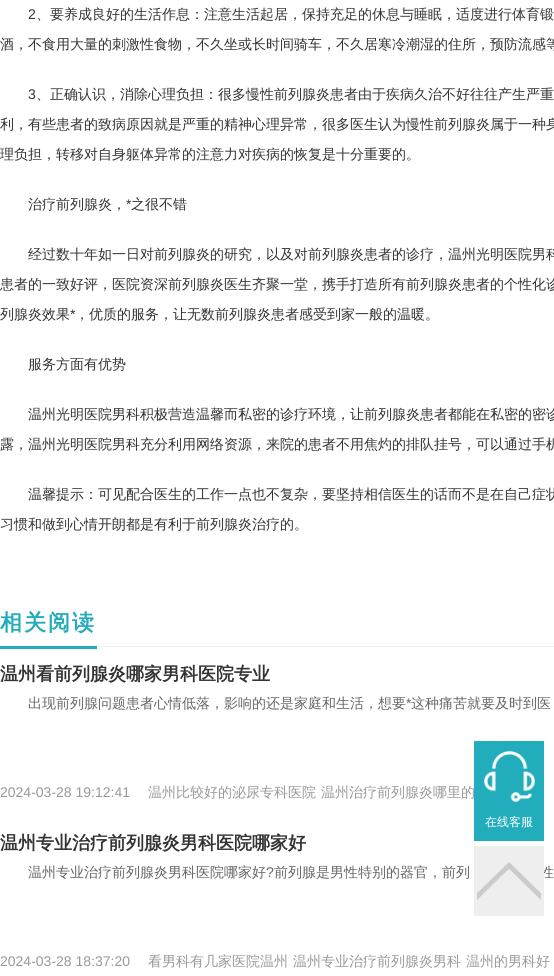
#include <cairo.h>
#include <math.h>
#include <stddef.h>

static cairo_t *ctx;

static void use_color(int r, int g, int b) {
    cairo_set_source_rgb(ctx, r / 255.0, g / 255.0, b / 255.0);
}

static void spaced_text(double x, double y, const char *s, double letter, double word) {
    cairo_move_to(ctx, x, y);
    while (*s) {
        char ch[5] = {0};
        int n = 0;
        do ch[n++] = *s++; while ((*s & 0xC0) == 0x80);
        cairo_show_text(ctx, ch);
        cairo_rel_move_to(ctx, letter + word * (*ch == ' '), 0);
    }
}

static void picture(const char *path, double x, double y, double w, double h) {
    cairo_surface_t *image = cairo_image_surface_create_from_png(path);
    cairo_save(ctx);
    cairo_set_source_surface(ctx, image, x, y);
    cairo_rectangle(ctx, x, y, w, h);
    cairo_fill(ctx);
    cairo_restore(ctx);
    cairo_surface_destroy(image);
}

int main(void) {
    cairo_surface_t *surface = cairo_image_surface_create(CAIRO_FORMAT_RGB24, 554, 976);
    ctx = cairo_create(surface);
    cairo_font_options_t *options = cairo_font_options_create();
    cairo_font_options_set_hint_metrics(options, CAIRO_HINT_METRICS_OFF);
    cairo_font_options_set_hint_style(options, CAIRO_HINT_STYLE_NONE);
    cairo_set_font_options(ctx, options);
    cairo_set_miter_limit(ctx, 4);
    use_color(255, 255, 255);
    cairo_paint(ctx);
    cairo_select_font_face(ctx, "Liberation Sans", CAIRO_FONT_SLANT_NORMAL, CAIRO_FONT_WEIGHT_NORMAL);
    cairo_set_font_size(ctx, 14);
    use_color(51, 51, 51);
    cairo_move_to(ctx, 28, 19);
    cairo_show_text(ctx, "2");
    cairo_select_font_face(ctx, "WenQuanYi Zen Hei Medium", CAIRO_FONT_SLANT_NORMAL, CAIRO_FONT_WEIGHT_NORMAL);
    cairo_move_to(ctx, 36, 19);
    cairo_show_text(ctx, "、要养成良好的生活作息：注意生活起居，保持充足的休息与睡眠，适度进行体育锻");
    cairo_move_to(ctx, 0, 49);
    cairo_show_text(ctx, "酒，不食用大量的刺激性食物，不久坐或长时间骑车，不久居寒冷潮湿的住所，预防流感等");
    cairo_select_font_face(ctx, "Liberation Sans", CAIRO_FONT_SLANT_NORMAL, CAIRO_FONT_WEIGHT_NORMAL);
    cairo_move_to(ctx, 28, 99);
    cairo_show_text(ctx, "3");
    cairo_select_font_face(ctx, "WenQuanYi Zen Hei Medium", CAIRO_FONT_SLANT_NORMAL, CAIRO_FONT_WEIGHT_NORMAL);
    cairo_move_to(ctx, 36, 99);
    cairo_show_text(ctx, "、正确认识，消除心理负担：很多慢性前列腺炎患者由于疾病久治不好往往产生严重");
    cairo_move_to(ctx, 0, 129);
    cairo_show_text(ctx, "利，有些患者的致病原因就是严重的精神心理异常，很多医生认为慢性前列腺炎属于一种身");
    cairo_move_to(ctx, 0, 159);
    cairo_show_text(ctx, "理负担，转移对自身躯体异常的注意力对疾病的恢复是十分重要的。");
    cairo_move_to(ctx, 28, 209);
    cairo_show_text(ctx, "治疗前列腺炎，");
    cairo_select_font_face(ctx, "Liberation Sans", CAIRO_FONT_SLANT_NORMAL, CAIRO_FONT_WEIGHT_NORMAL);
    cairo_move_to(ctx, 126, 209);
    cairo_show_text(ctx, "*");
    cairo_select_font_face(ctx, "WenQuanYi Zen Hei Medium", CAIRO_FONT_SLANT_NORMAL, CAIRO_FONT_WEIGHT_NORMAL);
    cairo_move_to(ctx, 131, 209);
    cairo_show_text(ctx, "之很不错");
    cairo_move_to(ctx, 28, 259);
    cairo_show_text(ctx, "经过数十年如一日对前列腺炎的研究，以及对前列腺炎患者的诊疗，温州光明医院男科");
    cairo_move_to(ctx, 0, 289);
    cairo_show_text(ctx, "患者的一致好评，医院资深前列腺炎医生齐聚一堂，携手打造所有前列腺炎患者的个性化诊");
    cairo_move_to(ctx, 0, 319);
    cairo_show_text(ctx, "列腺炎效果");
    cairo_select_font_face(ctx, "Liberation Sans", CAIRO_FONT_SLANT_NORMAL, CAIRO_FONT_WEIGHT_NORMAL);
    cairo_move_to(ctx, 70, 319);
    cairo_show_text(ctx, "*");
    cairo_select_font_face(ctx, "WenQuanYi Zen Hei Medium", CAIRO_FONT_SLANT_NORMAL, CAIRO_FONT_WEIGHT_NORMAL);
    cairo_move_to(ctx, 75, 319);
    cairo_show_text(ctx, "，优质的服务，让无数前列腺炎患者感受到家一般的温暖。");
    cairo_move_to(ctx, 28, 369);
    cairo_show_text(ctx, "服务方面有优势");
    cairo_move_to(ctx, 28, 419);
    cairo_show_text(ctx, "温州光明医院男科积极营造温馨而私密的诊疗环境，让前列腺炎患者都能在私密的密诊");
    cairo_move_to(ctx, 0, 449);
    cairo_show_text(ctx, "露，温州光明医院男科充分利用网络资源，来院的患者不用焦灼的排队挂号，可以通过手机");
    cairo_move_to(ctx, 28, 499);
    cairo_show_text(ctx, "温馨提示：可见配合医生的工作一点也不复杂，要坚持相信医生的话而不是在自己症状");
    cairo_move_to(ctx, 0, 529);
    cairo_show_text(ctx, "习惯和做到心情开朗都是有利于前列腺炎治疗的。");
    use_color(242, 242, 242);
    cairo_rectangle(ctx, 97, 646, 457, 1);
    cairo_fill(ctx);
    use_color(33, 173, 187);
    cairo_rectangle(ctx, 0, 646, 97, 3);
    cairo_fill(ctx);
    cairo_select_font_face(ctx, "WenQuanYi Zen Hei", CAIRO_FONT_SLANT_NORMAL, CAIRO_FONT_WEIGHT_BOLD);
    cairo_set_font_size(ctx, 22);
    spaced_text(0, 630, "相关阅读", 2, 0);
    cairo_set_font_size(ctx, 18);
    use_color(51, 51, 51);
    cairo_move_to(ctx, 0, 680);
    cairo_show_text(ctx, "温州看前列腺炎哪家男科医院专业");
    cairo_select_font_face(ctx, "WenQuanYi Zen Hei Medium", CAIRO_FONT_SLANT_NORMAL, CAIRO_FONT_WEIGHT_NORMAL);
    cairo_set_font_size(ctx, 14);
    use_color(102, 102, 102);
    cairo_move_to(ctx, 28, 708);
    cairo_show_text(ctx, "出现前列腺问题患者心情低落，影响的还是家庭和生活，想要");
    cairo_select_font_face(ctx, "Liberation Sans", CAIRO_FONT_SLANT_NORMAL, CAIRO_FONT_WEIGHT_NORMAL);
    cairo_move_to(ctx, 406, 708);
    cairo_show_text(ctx, "*");
    cairo_select_font_face(ctx, "WenQuanYi Zen Hei Medium", CAIRO_FONT_SLANT_NORMAL, CAIRO_FONT_WEIGHT_NORMAL);
    cairo_move_to(ctx, 411, 708);
    cairo_show_text(ctx, "这种痛苦就要及时到医");
    cairo_select_font_face(ctx, "Liberation Sans", CAIRO_FONT_SLANT_NORMAL, CAIRO_FONT_WEIGHT_NORMAL);
    use_color(153, 153, 153);
    cairo_move_to(ctx, 0, 797);
    cairo_show_text(ctx, "2024-03-28 19:12:41");
    cairo_select_font_face(ctx, "WenQuanYi Zen Hei Medium", CAIRO_FONT_SLANT_NORMAL, CAIRO_FONT_WEIGHT_NORMAL);
    cairo_move_to(ctx, 148, 797);
    cairo_show_text(ctx, "温州比较好的泌尿专科医院");
    cairo_move_to(ctx, 321, 797);
    cairo_show_text(ctx, "温州治疗前列腺炎哪里的");
    cairo_select_font_face(ctx, "WenQuanYi Zen Hei", CAIRO_FONT_SLANT_NORMAL, CAIRO_FONT_WEIGHT_BOLD);
    cairo_set_font_size(ctx, 18);
    use_color(51, 51, 51);
    cairo_move_to(ctx, 0, 849);
    cairo_show_text(ctx, "温州专业治疗前列腺炎男科医院哪家好");
    cairo_select_font_face(ctx, "WenQuanYi Zen Hei Medium", CAIRO_FONT_SLANT_NORMAL, CAIRO_FONT_WEIGHT_NORMAL);
    cairo_set_font_size(ctx, 14);
    use_color(102, 102, 102);
    cairo_move_to(ctx, 28, 877);
    cairo_show_text(ctx, "温州专业治疗前列腺炎男科医院哪家好");
    cairo_select_font_face(ctx, "Liberation Sans", CAIRO_FONT_SLANT_NORMAL, CAIRO_FONT_WEIGHT_NORMAL);
    cairo_move_to(ctx, 266, 877);
    cairo_show_text(ctx, "?");
    cairo_select_font_face(ctx, "WenQuanYi Zen Hei Medium", CAIRO_FONT_SLANT_NORMAL, CAIRO_FONT_WEIGHT_NORMAL);
    cairo_move_to(ctx, 274, 877);
    cairo_show_text(ctx, "前列腺是男性特别的器官，前列");
    cairo_move_to(ctx, 540, 877);
    cairo_show_text(ctx, "性");
    cairo_select_font_face(ctx, "Liberation Sans", CAIRO_FONT_SLANT_NORMAL, CAIRO_FONT_WEIGHT_NORMAL);
    use_color(153, 153, 153);
    cairo_move_to(ctx, 0, 966);
    cairo_show_text(ctx, "2024-03-28 18:37:20");
    cairo_select_font_face(ctx, "WenQuanYi Zen Hei Medium", CAIRO_FONT_SLANT_NORMAL, CAIRO_FONT_WEIGHT_NORMAL);
    cairo_move_to(ctx, 148, 966);
    cairo_show_text(ctx, "看男科有几家医院温州");
    cairo_move_to(ctx, 293, 966);
    cairo_show_text(ctx, "温州专业治疗前列腺炎男科");
    cairo_move_to(ctx, 466, 966);
    cairo_show_text(ctx, "温州的男科好");
    use_color(33, 173, 187);
    cairo_rectangle(ctx, 474, 741, 70, 100);
    cairo_fill(ctx);
    picture("img1.png", 484, 751, 51, 51);
    cairo_set_font_size(ctx, 12);
    use_color(255, 255, 255);
    cairo_move_to(ctx, 485, 826);
    cairo_show_text(ctx, "在线客服");
    use_color(238, 238, 238);
    cairo_rectangle(ctx, 474, 846, 70, 70);
    cairo_fill(ctx);
    picture("img2.png", 477, 862, 64, 38);
    cairo_surface_write_to_png(surface, "result.png");
    cairo_font_options_destroy(options);
    cairo_destroy(ctx);
    cairo_surface_destroy(surface);
    return 0;
}
